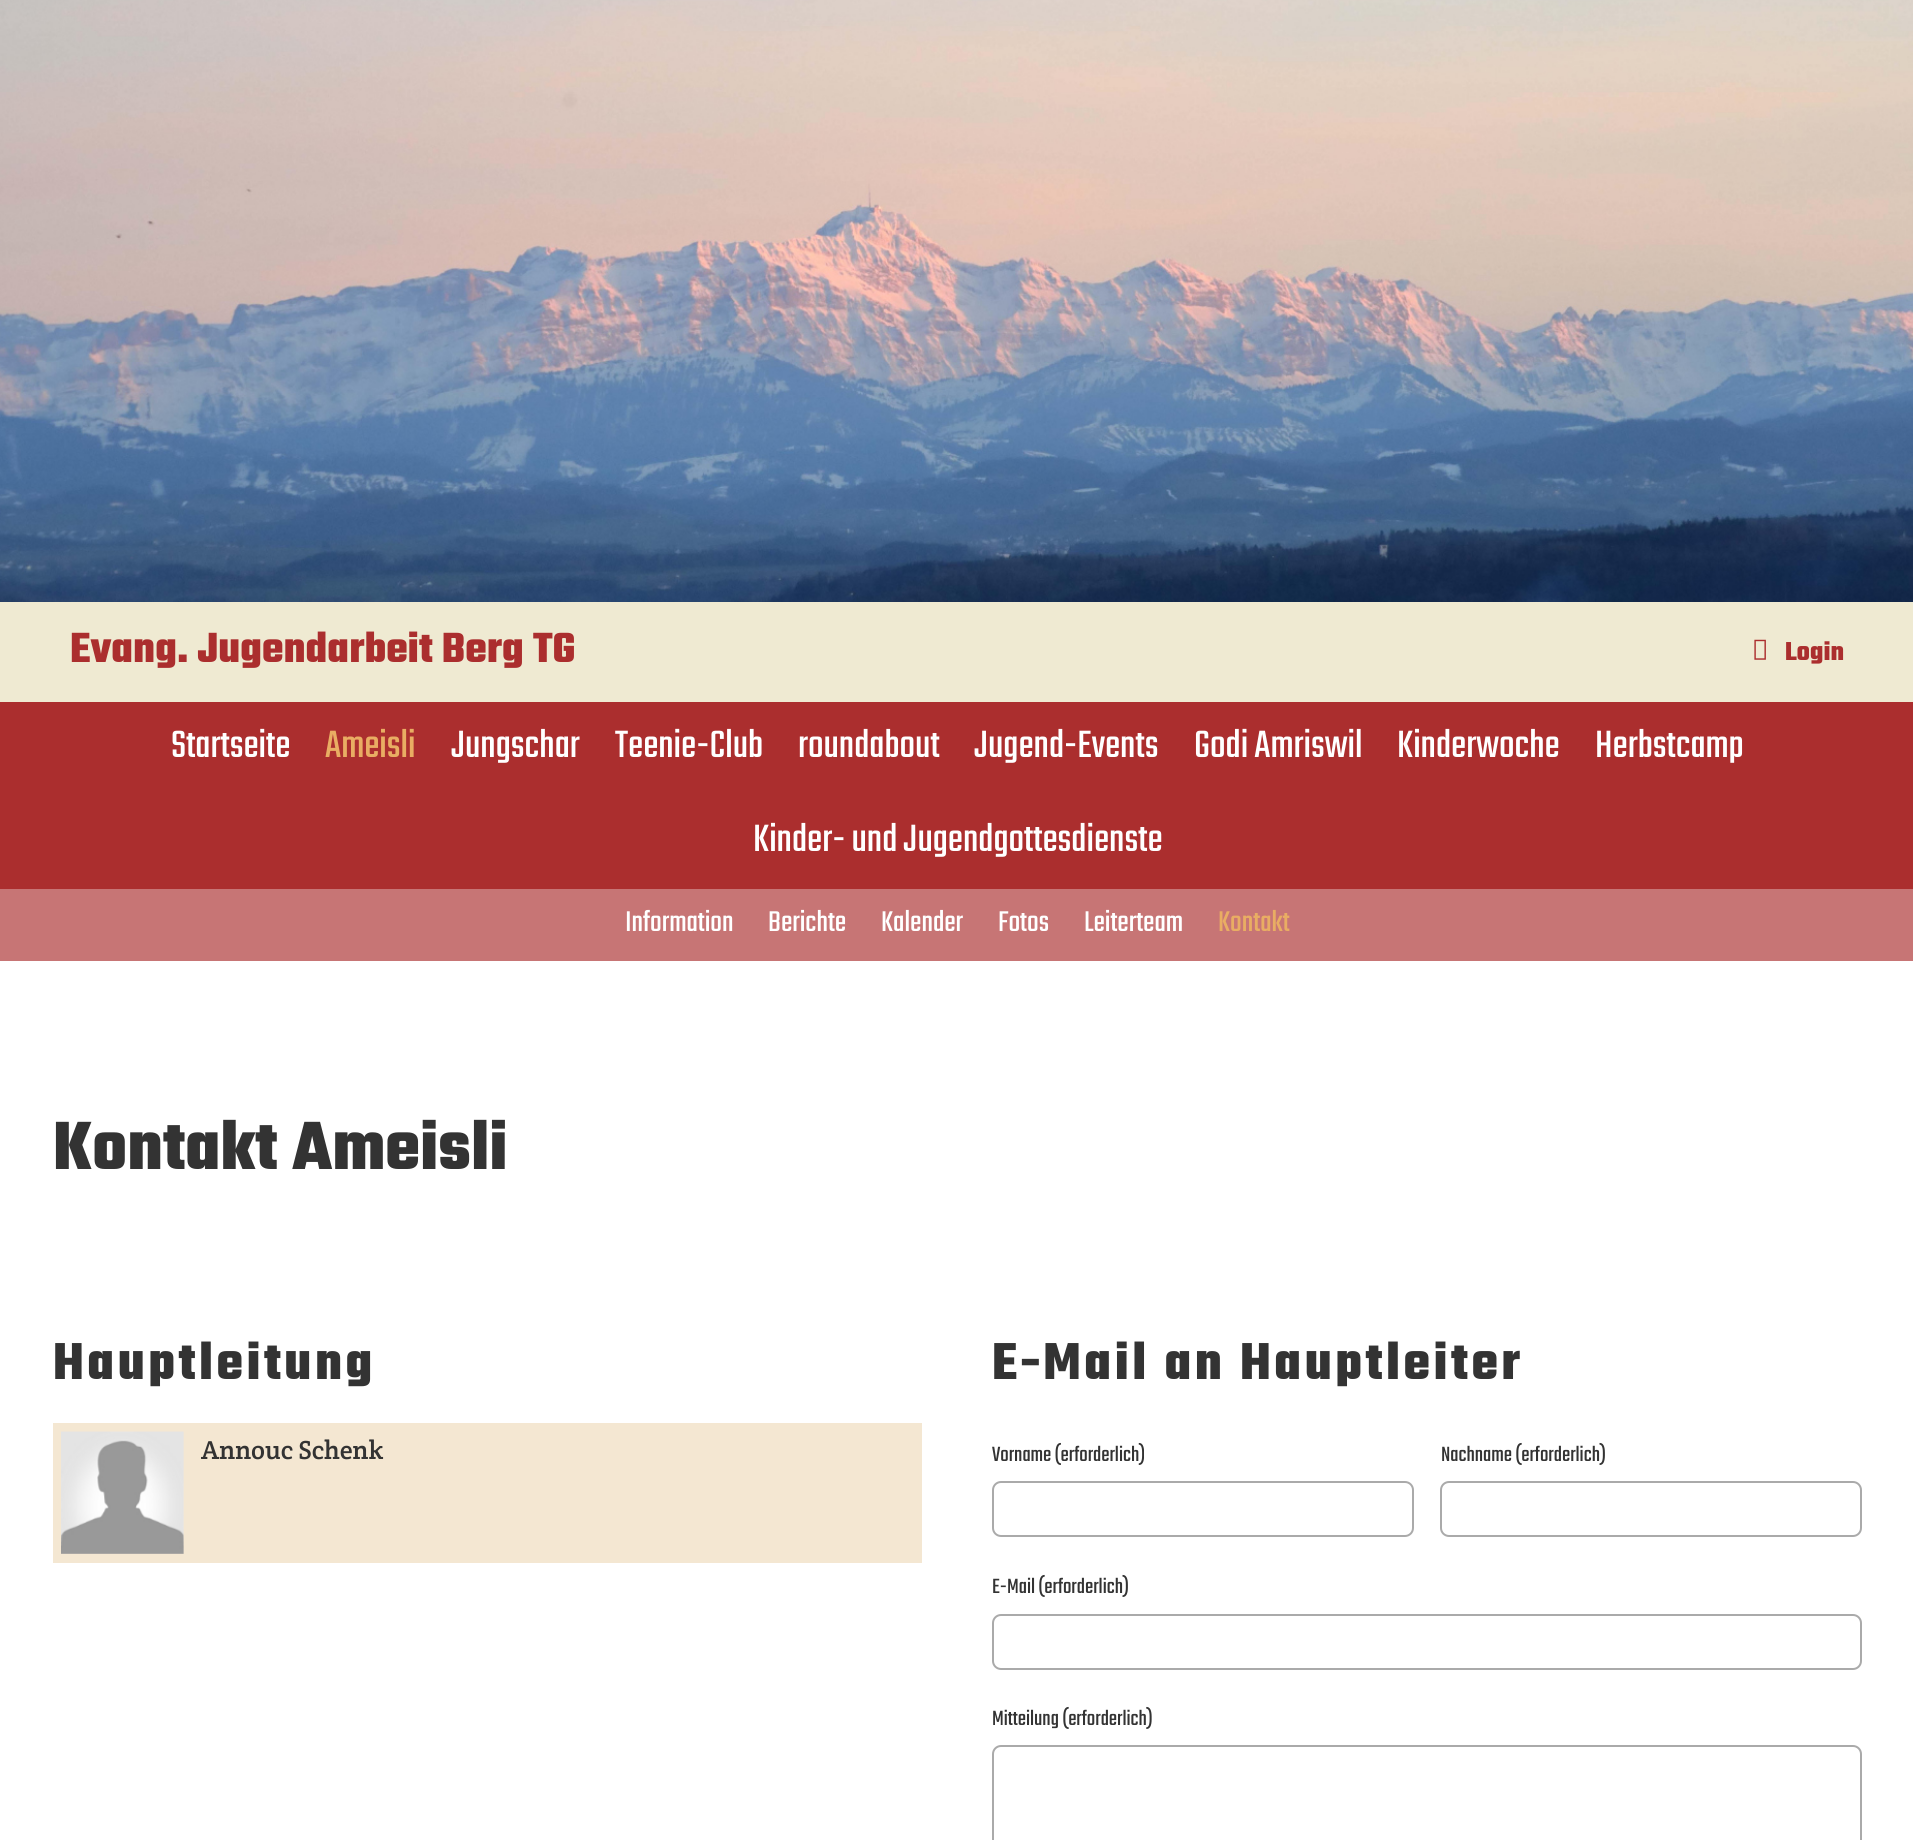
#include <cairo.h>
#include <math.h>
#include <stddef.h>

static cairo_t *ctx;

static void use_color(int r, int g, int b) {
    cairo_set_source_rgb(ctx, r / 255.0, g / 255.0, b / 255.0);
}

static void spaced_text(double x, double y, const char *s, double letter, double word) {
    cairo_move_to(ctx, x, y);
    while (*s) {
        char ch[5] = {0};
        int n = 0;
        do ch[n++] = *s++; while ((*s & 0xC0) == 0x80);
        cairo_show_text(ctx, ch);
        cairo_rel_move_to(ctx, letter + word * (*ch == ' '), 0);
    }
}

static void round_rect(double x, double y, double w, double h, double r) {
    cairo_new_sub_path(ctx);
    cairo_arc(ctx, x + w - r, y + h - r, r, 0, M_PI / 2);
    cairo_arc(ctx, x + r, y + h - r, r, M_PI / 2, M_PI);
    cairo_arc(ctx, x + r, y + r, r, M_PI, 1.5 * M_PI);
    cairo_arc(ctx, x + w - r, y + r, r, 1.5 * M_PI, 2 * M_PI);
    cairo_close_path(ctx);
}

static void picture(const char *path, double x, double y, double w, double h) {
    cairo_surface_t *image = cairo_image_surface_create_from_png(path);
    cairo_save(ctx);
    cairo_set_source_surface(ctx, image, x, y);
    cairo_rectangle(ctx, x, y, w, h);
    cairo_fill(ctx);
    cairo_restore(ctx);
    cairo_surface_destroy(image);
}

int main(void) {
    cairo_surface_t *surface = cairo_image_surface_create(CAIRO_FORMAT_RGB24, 1913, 1840);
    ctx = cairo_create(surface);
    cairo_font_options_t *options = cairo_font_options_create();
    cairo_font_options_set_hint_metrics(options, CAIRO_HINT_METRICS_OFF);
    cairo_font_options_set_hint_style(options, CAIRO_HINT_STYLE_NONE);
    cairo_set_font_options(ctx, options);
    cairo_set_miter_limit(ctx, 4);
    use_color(255, 255, 255);
    cairo_paint(ctx);
    picture("img1.png", 0, 0, 1913, 602);
    use_color(239, 234, 210);
    cairo_rectangle(ctx, 0, 602, 1913, 100);
    cairo_fill(ctx);
    cairo_select_font_face(ctx, "Teko", CAIRO_FONT_SLANT_NORMAL, CAIRO_FONT_WEIGHT_BOLD);
    cairo_set_font_size(ctx, 45.5);
    use_color(171, 46, 46);
    cairo_move_to(ctx, 70, 662);
    cairo_show_text(ctx, "Evang. Jugendarbeit Berg TG");
    picture("img2.png", 1754, 639, 12, 21);
    cairo_set_font_size(ctx, 28);
    cairo_move_to(ctx, 1785, 660);
    cairo_show_text(ctx, "Login");
    cairo_rectangle(ctx, 0, 702, 1913, 187);
    cairo_fill(ctx);
    cairo_select_font_face(ctx, "Teko", CAIRO_FONT_SLANT_NORMAL, CAIRO_FONT_WEIGHT_NORMAL);
    cairo_set_font_size(ctx, 42);
    use_color(255, 255, 255);
    cairo_move_to(ctx, 171, 757);
    cairo_show_text(ctx, "Startseite");
    use_color(233, 173, 99);
    cairo_move_to(ctx, 325, 757);
    cairo_show_text(ctx, "Ameisli");
    use_color(255, 255, 255);
    cairo_move_to(ctx, 451, 757);
    cairo_show_text(ctx, "Jungschar");
    cairo_move_to(ctx, 615, 757);
    cairo_show_text(ctx, "Teenie-Club");
    cairo_move_to(ctx, 798, 757);
    cairo_show_text(ctx, "roundabout");
    cairo_move_to(ctx, 974, 757);
    cairo_show_text(ctx, "Jugend-Events");
    cairo_move_to(ctx, 1194, 757);
    cairo_show_text(ctx, "Godi Amriswil");
    cairo_move_to(ctx, 1397, 757);
    cairo_show_text(ctx, "Kinderwoche");
    cairo_move_to(ctx, 1595, 757);
    cairo_show_text(ctx, "Herbstcamp");
    cairo_move_to(ctx, 753, 851);
    cairo_show_text(ctx, "Kinder- und Jugendgottesdienste");
    use_color(199, 117, 117);
    cairo_rectangle(ctx, 0, 889, 1913, 72);
    cairo_fill(ctx);
    cairo_set_font_size(ctx, 31.5);
    use_color(255, 255, 255);
    cairo_move_to(ctx, 625, 931);
    cairo_show_text(ctx, "Information");
    cairo_move_to(ctx, 768, 931);
    cairo_show_text(ctx, "Berichte");
    cairo_move_to(ctx, 881, 931);
    cairo_show_text(ctx, "Kalender");
    cairo_move_to(ctx, 998, 931);
    cairo_show_text(ctx, "Fotos");
    cairo_move_to(ctx, 1084, 931);
    cairo_show_text(ctx, "Leiterteam");
    use_color(233, 173, 99);
    cairo_move_to(ctx, 1218, 931);
    cairo_show_text(ctx, "Kontakt");
    cairo_select_font_face(ctx, "Teko", CAIRO_FONT_SLANT_NORMAL, CAIRO_FONT_WEIGHT_BOLD);
    cairo_set_font_size(ctx, 73.5);
    use_color(51, 51, 51);
    cairo_move_to(ctx, 53, 1169);
    cairo_show_text(ctx, "Kontakt Ameisli");
    cairo_set_font_size(ctx, 56);
    spaced_text(53, 1379, "Hauptleitung", 3.5, 0);
    use_color(244, 231, 210);
    cairo_rectangle(ctx, 53, 1423, 869, 140);
    cairo_fill(ctx);
    picture("img3.png", 61, 1431, 123, 123);
    cairo_select_font_face(ctx, "Crete Round", CAIRO_FONT_SLANT_NORMAL, CAIRO_FONT_WEIGHT_NORMAL);
    cairo_set_font_size(ctx, 26.25);
    use_color(51, 51, 51);
    cairo_move_to(ctx, 201, 1459);
    cairo_show_text(ctx, "Annouc Schenk");
    cairo_select_font_face(ctx, "Teko", CAIRO_FONT_SLANT_NORMAL, CAIRO_FONT_WEIGHT_BOLD);
    cairo_set_font_size(ctx, 56);
    spaced_text(992, 1379, "E-Mail an Hauptleiter", 3.5, 0);
    cairo_select_font_face(ctx, "Teko", CAIRO_FONT_SLANT_NORMAL, CAIRO_FONT_WEIGHT_NORMAL);
    cairo_set_font_size(ctx, 22.75);
    cairo_move_to(ctx, 992, 1461);
    cairo_show_text(ctx, "Vorname (erforderlich)");
    round_rect(993, 1482, 420, 54, 8);
    use_color(170, 170, 170);
    cairo_stroke(ctx);
    use_color(51, 51, 51);
    cairo_move_to(ctx, 1441, 1461);
    cairo_show_text(ctx, "Nachname (erforderlich)");
    round_rect(1441, 1482, 420, 54, 8);
    use_color(170, 170, 170);
    cairo_stroke(ctx);
    use_color(51, 51, 51);
    cairo_move_to(ctx, 992, 1593);
    cairo_show_text(ctx, "E-Mail (erforderlich)");
    round_rect(993, 1615, 868, 54, 8);
    use_color(170, 170, 170);
    cairo_stroke(ctx);
    use_color(51, 51, 51);
    cairo_move_to(ctx, 992, 1725);
    cairo_show_text(ctx, "Mitteilung (erforderlich)");
    round_rect(993, 1746, 868, 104, 8);
    use_color(170, 170, 170);
    cairo_stroke(ctx);
    cairo_surface_write_to_png(surface, "result.png");
    cairo_font_options_destroy(options);
    cairo_destroy(ctx);
    cairo_surface_destroy(surface);
    return 0;
}
